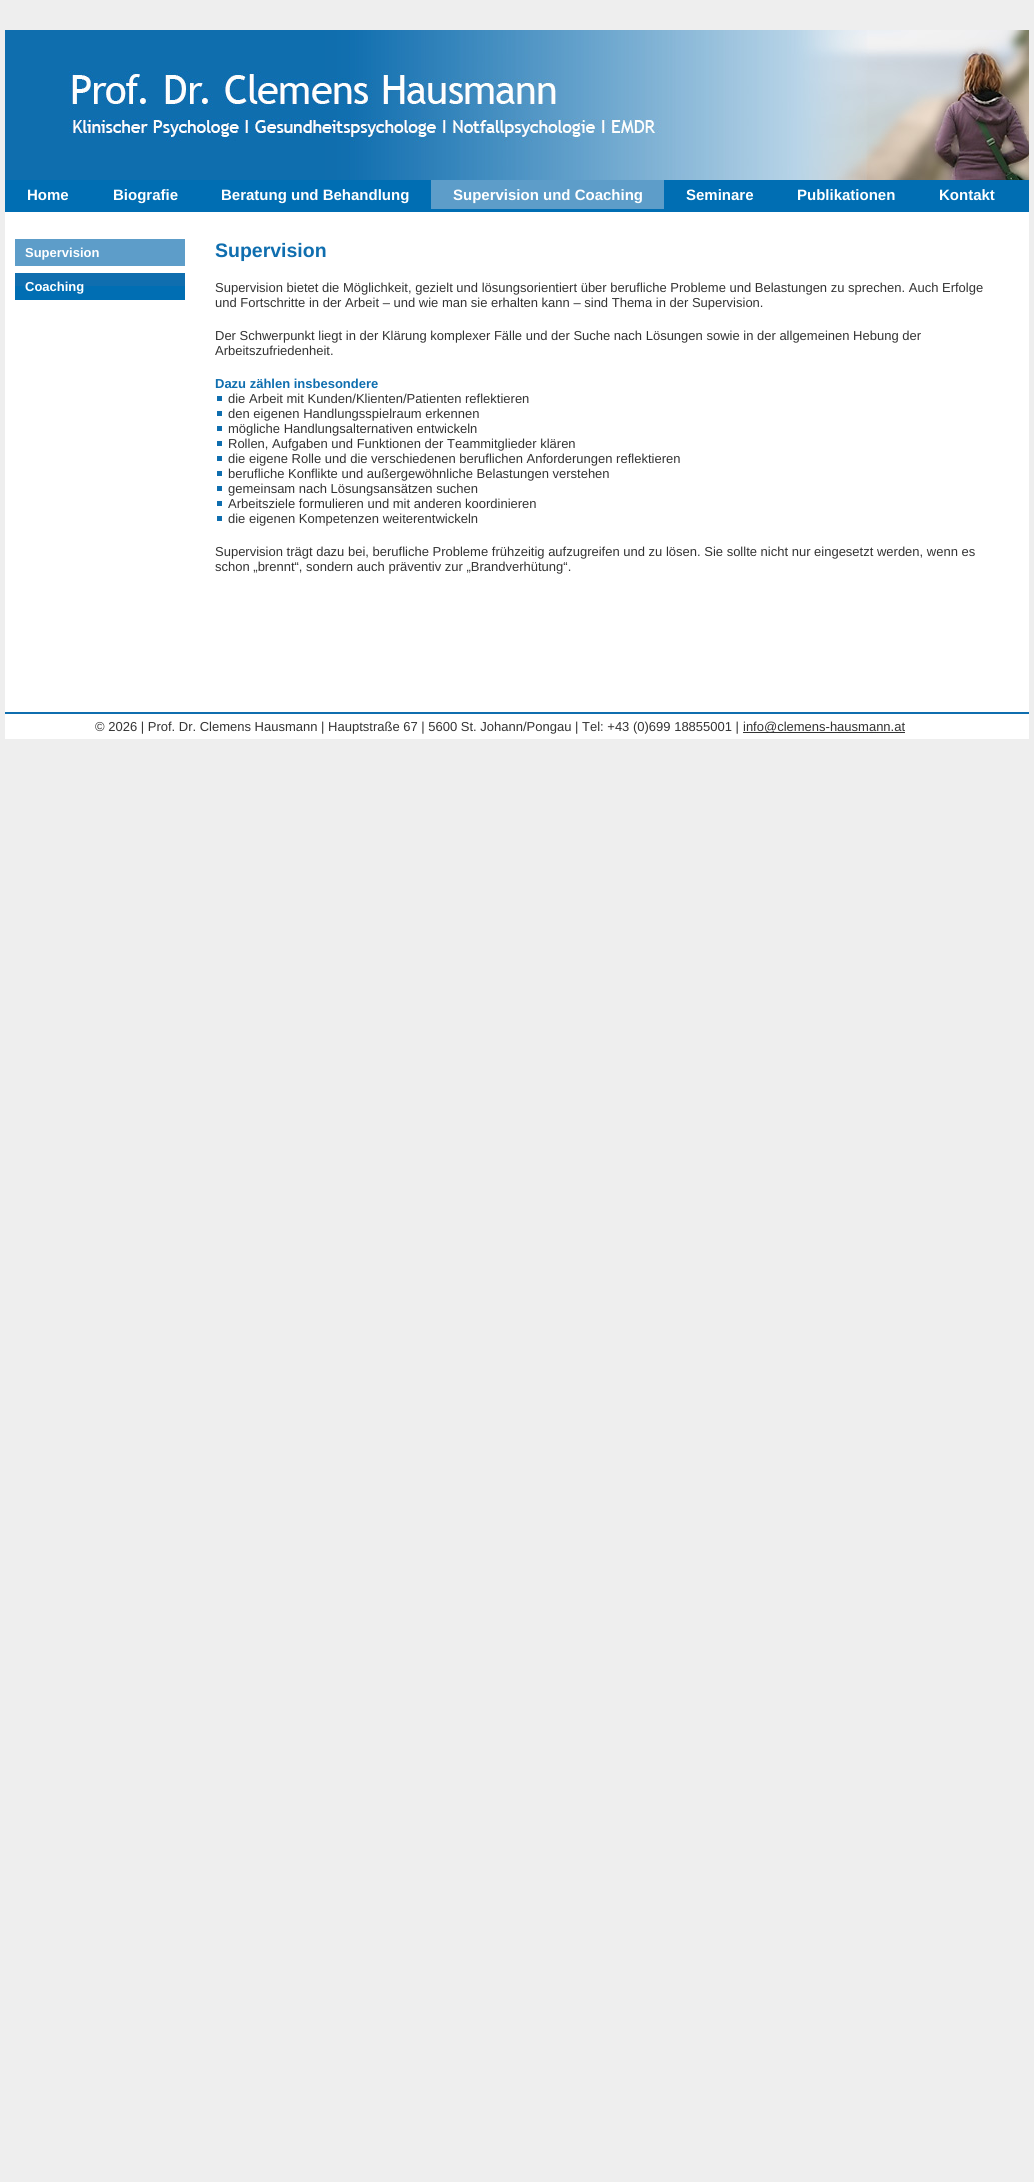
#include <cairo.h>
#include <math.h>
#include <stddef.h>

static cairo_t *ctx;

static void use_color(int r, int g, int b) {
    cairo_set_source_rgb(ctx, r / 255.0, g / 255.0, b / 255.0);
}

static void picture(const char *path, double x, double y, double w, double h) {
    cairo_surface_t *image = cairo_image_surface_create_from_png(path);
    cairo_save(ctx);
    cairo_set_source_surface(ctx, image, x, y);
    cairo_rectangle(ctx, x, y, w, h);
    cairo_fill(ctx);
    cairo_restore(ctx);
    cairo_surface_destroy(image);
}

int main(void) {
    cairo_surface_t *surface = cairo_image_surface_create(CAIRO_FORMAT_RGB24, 1034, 2182);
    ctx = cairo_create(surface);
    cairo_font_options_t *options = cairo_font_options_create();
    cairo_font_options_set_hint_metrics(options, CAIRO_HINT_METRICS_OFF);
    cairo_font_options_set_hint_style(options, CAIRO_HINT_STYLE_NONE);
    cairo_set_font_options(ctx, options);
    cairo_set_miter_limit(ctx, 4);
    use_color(238, 238, 238);
    cairo_paint(ctx);
    use_color(255, 255, 255);
    cairo_rectangle(ctx, 5, 212, 1024, 527);
    cairo_fill(ctx);
    picture("img1.png", 5, 30, 1024, 150);
    use_color(0, 110, 179);
    cairo_rectangle(ctx, 5, 180, 1024, 32);
    cairo_fill(ctx);
    cairo_select_font_face(ctx, "Liberation Sans", CAIRO_FONT_SLANT_NORMAL, CAIRO_FONT_WEIGHT_BOLD);
    cairo_set_font_size(ctx, 15);
    use_color(255, 255, 255);
    cairo_move_to(ctx, 27, 200);
    cairo_show_text(ctx, "Home");
    cairo_move_to(ctx, 113, 200);
    cairo_show_text(ctx, "Biografie");
    cairo_move_to(ctx, 221, 200);
    cairo_show_text(ctx, "Beratung und Behandlung");
    use_color(93, 157, 201);
    cairo_rectangle(ctx, 431, 180, 233, 29);
    cairo_fill(ctx);
    use_color(255, 255, 255);
    cairo_move_to(ctx, 453, 200);
    cairo_show_text(ctx, "Supervision und Coaching");
    cairo_move_to(ctx, 686, 200);
    cairo_show_text(ctx, "Seminare");
    cairo_move_to(ctx, 797, 200);
    cairo_show_text(ctx, "Publikationen");
    cairo_move_to(ctx, 939, 200);
    cairo_show_text(ctx, "Kontakt");
    use_color(93, 157, 201);
    cairo_rectangle(ctx, 15, 239, 170, 27);
    cairo_fill(ctx);
    cairo_set_font_size(ctx, 13);
    use_color(255, 255, 255);
    cairo_move_to(ctx, 25, 257);
    cairo_show_text(ctx, "Supervision");
    use_color(15, 110, 175);
    cairo_rectangle(ctx, 15, 273, 170, 13);
    cairo_fill(ctx);
    use_color(0, 110, 179);
    cairo_rectangle(ctx, 15, 286, 170, 14);
    cairo_fill(ctx);
    use_color(255, 255, 255);
    cairo_move_to(ctx, 25, 291);
    cairo_show_text(ctx, "Coaching");
    cairo_set_font_size(ctx, 19.5);
    use_color(15, 110, 175);
    cairo_move_to(ctx, 215, 257);
    cairo_show_text(ctx, "Supervision");
    cairo_select_font_face(ctx, "Liberation Sans", CAIRO_FONT_SLANT_NORMAL, CAIRO_FONT_WEIGHT_NORMAL);
    cairo_set_font_size(ctx, 13);
    use_color(51, 51, 51);
    cairo_move_to(ctx, 215, 292);
    cairo_show_text(ctx, "Supervision bietet die Möglichkeit, gezielt und lösungsorientiert über berufliche Probleme und Belastungen zu sprechen. Auch Erfolge");
    cairo_move_to(ctx, 215, 307);
    cairo_show_text(ctx, "und Fortschritte in der Arbeit – und wie man sie erhalten kann – sind Thema in der Supervision.");
    cairo_move_to(ctx, 215, 340);
    cairo_show_text(ctx, "Der Schwerpunkt liegt in der Klärung komplexer Fälle und der Suche nach Lösungen sowie in der allgemeinen Hebung der");
    cairo_move_to(ctx, 215, 355);
    cairo_show_text(ctx, "Arbeitszufriedenheit.");
    cairo_select_font_face(ctx, "Liberation Sans", CAIRO_FONT_SLANT_NORMAL, CAIRO_FONT_WEIGHT_BOLD);
    use_color(15, 110, 175);
    cairo_move_to(ctx, 215, 388);
    cairo_show_text(ctx, "Dazu zählen insbesondere");
    cairo_rectangle(ctx, 217, 396, 5, 5);
    cairo_fill(ctx);
    cairo_select_font_face(ctx, "Liberation Sans", CAIRO_FONT_SLANT_NORMAL, CAIRO_FONT_WEIGHT_NORMAL);
    use_color(51, 51, 51);
    cairo_move_to(ctx, 228, 403);
    cairo_show_text(ctx, "die Arbeit mit Kunden/Klienten/Patienten reflektieren");
    use_color(15, 110, 175);
    cairo_rectangle(ctx, 217, 411, 5, 5);
    cairo_fill(ctx);
    use_color(51, 51, 51);
    cairo_move_to(ctx, 228, 418);
    cairo_show_text(ctx, "den eigenen Handlungsspielraum erkennen");
    use_color(15, 110, 175);
    cairo_rectangle(ctx, 217, 426, 5, 5);
    cairo_fill(ctx);
    use_color(51, 51, 51);
    cairo_move_to(ctx, 228, 433);
    cairo_show_text(ctx, "mögliche Handlungsalternativen entwickeln");
    use_color(15, 110, 175);
    cairo_rectangle(ctx, 217, 441, 5, 5);
    cairo_fill(ctx);
    use_color(51, 51, 51);
    cairo_move_to(ctx, 228, 448);
    cairo_show_text(ctx, "Rollen, Aufgaben und Funktionen der Teammitglieder klären");
    use_color(15, 110, 175);
    cairo_rectangle(ctx, 217, 456, 5, 5);
    cairo_fill(ctx);
    use_color(51, 51, 51);
    cairo_move_to(ctx, 228, 463);
    cairo_show_text(ctx, "die eigene Rolle und die verschiedenen beruflichen Anforderungen reflektieren");
    use_color(15, 110, 175);
    cairo_rectangle(ctx, 217, 471, 5, 5);
    cairo_fill(ctx);
    use_color(51, 51, 51);
    cairo_move_to(ctx, 228, 478);
    cairo_show_text(ctx, "berufliche Konflikte und außergewöhnliche Belastungen verstehen");
    use_color(15, 110, 175);
    cairo_rectangle(ctx, 217, 486, 5, 5);
    cairo_fill(ctx);
    use_color(51, 51, 51);
    cairo_move_to(ctx, 228, 493);
    cairo_show_text(ctx, "gemeinsam nach Lösungsansätzen suchen");
    use_color(15, 110, 175);
    cairo_rectangle(ctx, 217, 501, 5, 5);
    cairo_fill(ctx);
    use_color(51, 51, 51);
    cairo_move_to(ctx, 228, 508);
    cairo_show_text(ctx, "Arbeitsziele formulieren und mit anderen koordinieren");
    use_color(15, 110, 175);
    cairo_rectangle(ctx, 217, 516, 5, 5);
    cairo_fill(ctx);
    use_color(51, 51, 51);
    cairo_move_to(ctx, 228, 523);
    cairo_show_text(ctx, "die eigenen Kompetenzen weiterentwickeln");
    cairo_move_to(ctx, 215, 556);
    cairo_show_text(ctx, "Supervision trägt dazu bei, berufliche Probleme frühzeitig aufzugreifen und zu lösen. Sie sollte nicht nur eingesetzt werden, wenn es");
    cairo_move_to(ctx, 215, 571);
    cairo_show_text(ctx, "schon „brennt“, sondern auch präventiv zur „Brandverhütung“.");
    use_color(15, 110, 175);
    cairo_rectangle(ctx, 5, 712, 1024, 2);
    cairo_fill(ctx);
    use_color(51, 51, 51);
    cairo_move_to(ctx, 95, 731);
    cairo_show_text(ctx, "© 2026 | Prof. Dr. Clemens Hausmann | Hauptstraße 67 | 5600 St. Johann/Pongau | Tel: +43 (0)699 18855001 |");
    cairo_rectangle(ctx, 743, 732, 162, 1);
    cairo_fill(ctx);
    cairo_move_to(ctx, 743, 731);
    cairo_show_text(ctx, "info@clemens-hausmann.at");
    cairo_surface_write_to_png(surface, "result.png");
    cairo_font_options_destroy(options);
    cairo_destroy(ctx);
    cairo_surface_destroy(surface);
    return 0;
}
